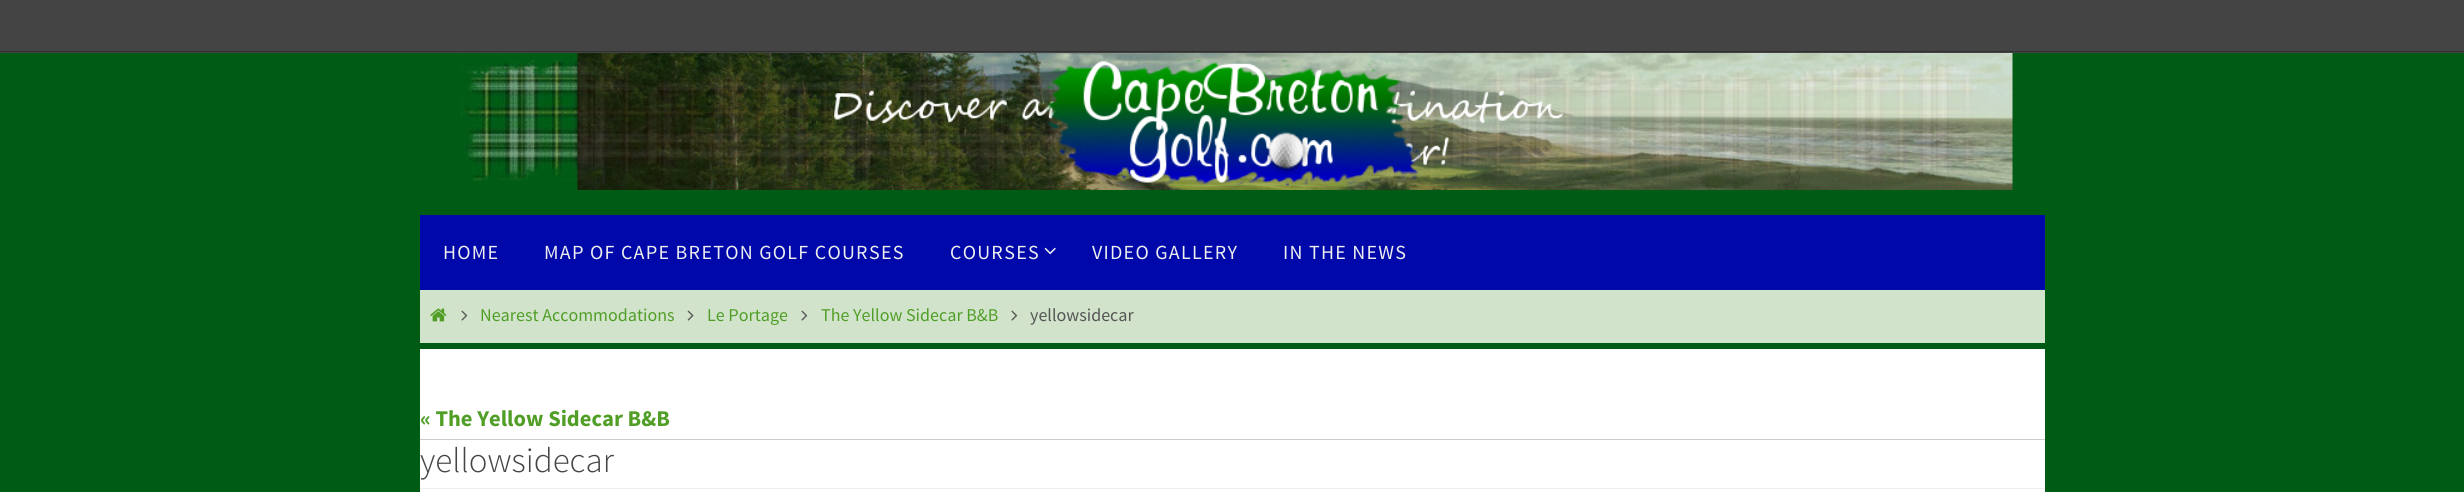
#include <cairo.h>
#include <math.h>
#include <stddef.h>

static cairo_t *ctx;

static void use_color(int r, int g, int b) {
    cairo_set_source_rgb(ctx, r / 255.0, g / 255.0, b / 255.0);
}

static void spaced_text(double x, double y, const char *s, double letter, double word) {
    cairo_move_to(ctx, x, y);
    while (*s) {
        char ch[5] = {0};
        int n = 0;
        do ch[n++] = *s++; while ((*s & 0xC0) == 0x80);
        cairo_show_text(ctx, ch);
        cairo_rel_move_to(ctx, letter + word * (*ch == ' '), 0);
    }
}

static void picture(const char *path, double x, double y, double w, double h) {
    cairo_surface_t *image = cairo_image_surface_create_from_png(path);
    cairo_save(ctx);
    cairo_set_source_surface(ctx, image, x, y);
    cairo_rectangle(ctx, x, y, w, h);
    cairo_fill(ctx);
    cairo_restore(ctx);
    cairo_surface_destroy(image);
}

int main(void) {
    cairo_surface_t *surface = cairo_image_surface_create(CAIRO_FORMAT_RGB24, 2464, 492);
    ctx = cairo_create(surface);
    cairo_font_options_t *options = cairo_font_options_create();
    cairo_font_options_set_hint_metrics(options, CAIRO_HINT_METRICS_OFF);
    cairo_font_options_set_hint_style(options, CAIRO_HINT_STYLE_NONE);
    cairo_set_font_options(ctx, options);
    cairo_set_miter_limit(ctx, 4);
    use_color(0, 92, 20);
    cairo_paint(ctx);
    use_color(68, 68, 68);
    cairo_rectangle(ctx, 0, 0, 2464, 53);
    cairo_fill(ctx);
    use_color(48, 48, 48);
    cairo_rectangle(ctx, 0, 51, 2464, 1);
    cairo_fill(ctx);
    picture("img1.png", 460, 53, 1553, 137);
    picture("img2.png", 1046, 60, 374, 126);
    use_color(0, 8, 169);
    cairo_rectangle(ctx, 420, 215, 1625, 75);
    cairo_fill(ctx);
    cairo_select_font_face(ctx, "Source Sans Pro", CAIRO_FONT_SLANT_NORMAL, CAIRO_FONT_WEIGHT_NORMAL);
    cairo_set_font_size(ctx, 20);
    use_color(238, 238, 238);
    spaced_text(443, 259, "HOME", 1.25, 0);
    spaced_text(544, 259, "MAP OF CAPE BRETON GOLF COURSES", 1.25, 0);
    spaced_text(950, 259, "COURSES", 1.25, 0);
    picture("img3.png", 1044, 247, 12, 8);
    spaced_text(1092, 259, "VIDEO GALLERY", 1.25, 0);
    spaced_text(1283, 259, "IN THE NEWS", 1.25, 0);
    use_color(209, 228, 203);
    cairo_rectangle(ctx, 420, 290, 1625, 53);
    cairo_fill(ctx);
    picture("img4.png", 430, 308, 17, 14);
    picture("img5.png", 461, 310, 7, 11);
    cairo_set_font_size(ctx, 18);
    use_color(81, 158, 39);
    cairo_move_to(ctx, 480, 321);
    cairo_show_text(ctx, "Nearest Accommodations");
    picture("img6.png", 687, 310, 7, 11);
    cairo_move_to(ctx, 707, 321);
    cairo_show_text(ctx, "Le Portage");
    picture("img5.png", 801, 310, 7, 11);
    cairo_move_to(ctx, 821, 321);
    cairo_show_text(ctx, "The Yellow Sidecar B&B");
    picture("img5.png", 1011, 310, 7, 11);
    use_color(85, 85, 85);
    cairo_move_to(ctx, 1030, 321);
    cairo_show_text(ctx, "yellowsidecar");
    use_color(255, 255, 255);
    cairo_rectangle(ctx, 420, 349, 1625, 143);
    cairo_fill(ctx);
    use_color(204, 204, 204);
    cairo_rectangle(ctx, 420, 439, 1625, 1);
    cairo_fill(ctx);
    cairo_select_font_face(ctx, "Source Sans Pro", CAIRO_FONT_SLANT_NORMAL, CAIRO_FONT_WEIGHT_BOLD);
    cairo_set_font_size(ctx, 22.5);
    use_color(81, 158, 39);
    cairo_move_to(ctx, 420, 426);
    cairo_show_text(ctx, "« The Yellow Sidecar B&B");
    cairo_select_font_face(ctx, "Source Sans Pro Light", CAIRO_FONT_SLANT_NORMAL, CAIRO_FONT_WEIGHT_NORMAL);
    cairo_set_font_size(ctx, 35);
    use_color(68, 68, 68);
    cairo_move_to(ctx, 420, 472);
    cairo_show_text(ctx, "yellowsidecar");
    use_color(238, 238, 238);
    cairo_rectangle(ctx, 420, 488, 1625, 1);
    cairo_fill(ctx);
    cairo_surface_write_to_png(surface, "result.png");
    cairo_font_options_destroy(options);
    cairo_destroy(ctx);
    cairo_surface_destroy(surface);
    return 0;
}
